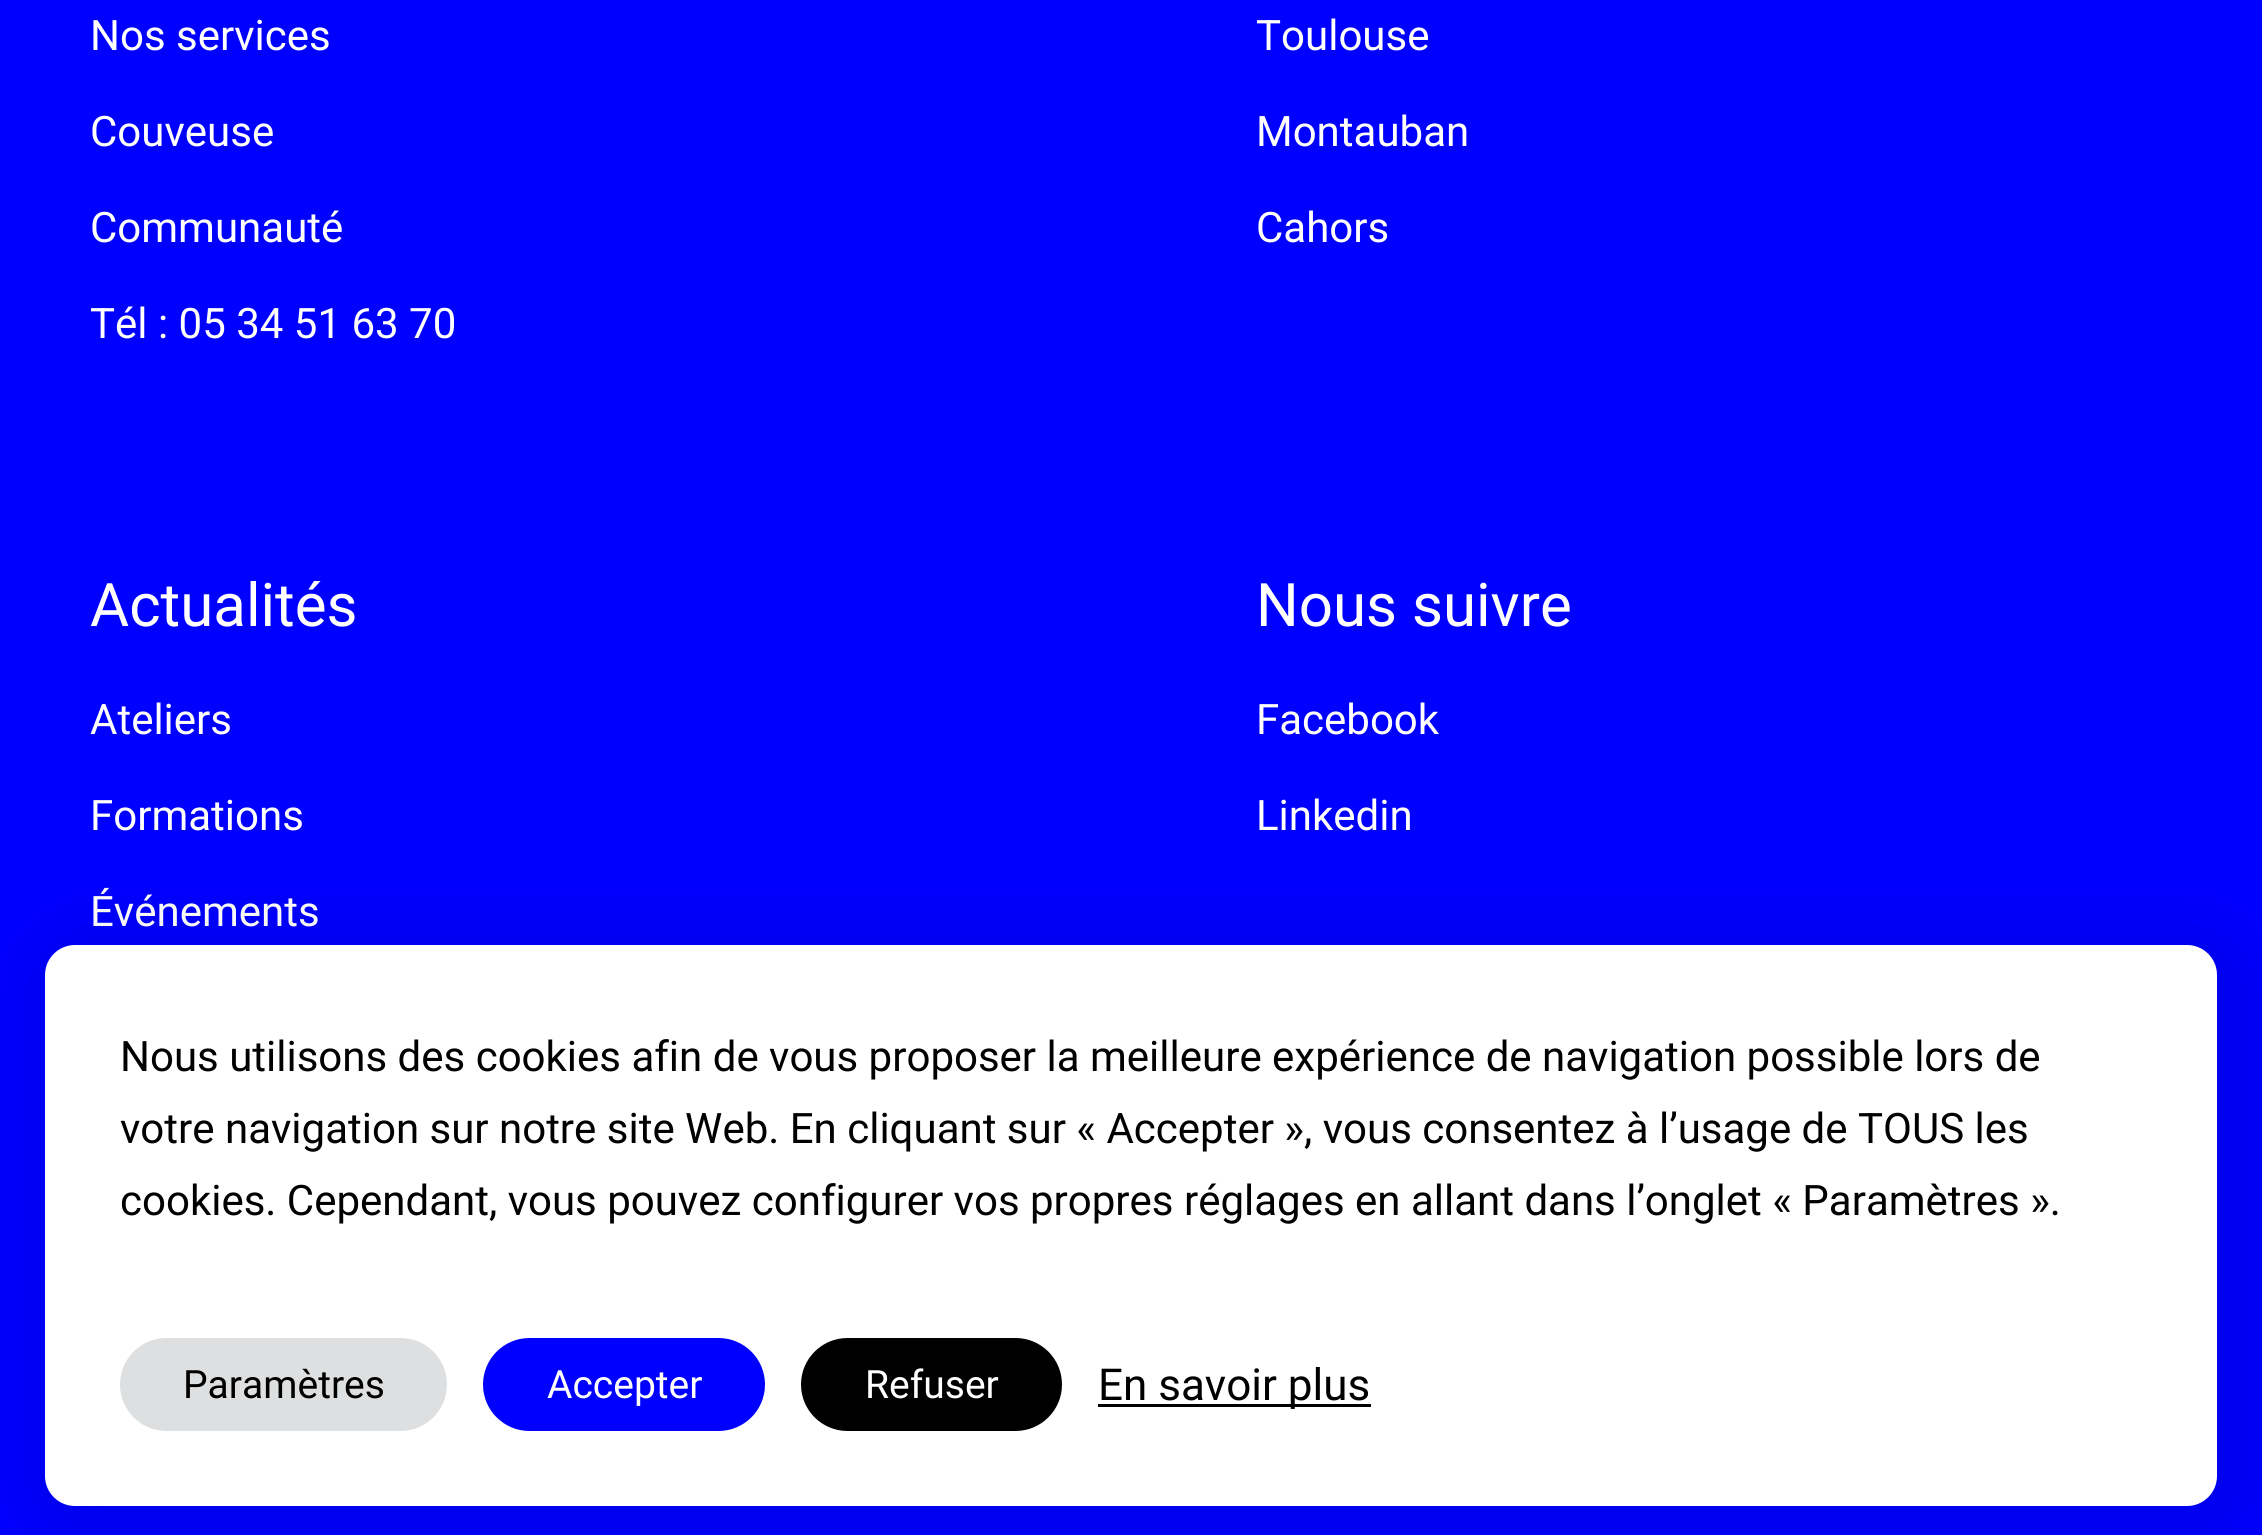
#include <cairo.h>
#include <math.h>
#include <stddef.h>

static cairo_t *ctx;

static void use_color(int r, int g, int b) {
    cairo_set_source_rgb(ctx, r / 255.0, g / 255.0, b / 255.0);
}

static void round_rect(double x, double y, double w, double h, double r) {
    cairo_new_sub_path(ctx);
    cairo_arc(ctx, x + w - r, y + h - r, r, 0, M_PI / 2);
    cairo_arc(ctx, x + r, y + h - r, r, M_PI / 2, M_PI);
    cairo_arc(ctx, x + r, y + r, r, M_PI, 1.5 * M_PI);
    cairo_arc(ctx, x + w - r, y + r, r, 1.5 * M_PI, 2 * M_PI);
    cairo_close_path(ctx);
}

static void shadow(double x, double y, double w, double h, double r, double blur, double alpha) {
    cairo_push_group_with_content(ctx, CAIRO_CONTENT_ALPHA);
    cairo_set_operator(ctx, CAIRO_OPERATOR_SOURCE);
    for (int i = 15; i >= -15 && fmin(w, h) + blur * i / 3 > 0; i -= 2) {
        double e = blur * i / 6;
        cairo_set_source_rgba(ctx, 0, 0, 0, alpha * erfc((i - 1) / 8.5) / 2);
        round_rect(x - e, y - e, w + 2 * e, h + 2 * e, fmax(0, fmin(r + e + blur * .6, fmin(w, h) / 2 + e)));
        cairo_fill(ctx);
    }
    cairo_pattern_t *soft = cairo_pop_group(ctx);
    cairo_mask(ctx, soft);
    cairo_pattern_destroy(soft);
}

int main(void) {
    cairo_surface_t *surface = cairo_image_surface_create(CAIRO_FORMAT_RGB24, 2262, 1535);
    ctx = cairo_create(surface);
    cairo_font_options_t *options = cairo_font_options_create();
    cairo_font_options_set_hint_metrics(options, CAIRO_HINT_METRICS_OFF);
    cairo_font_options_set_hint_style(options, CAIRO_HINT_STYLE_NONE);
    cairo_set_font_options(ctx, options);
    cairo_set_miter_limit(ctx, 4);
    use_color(0, 0, 255);
    cairo_paint(ctx);
    cairo_select_font_face(ctx, "Roboto", CAIRO_FONT_SLANT_NORMAL, CAIRO_FONT_WEIGHT_NORMAL);
    cairo_set_font_size(ctx, 42);
    use_color(255, 255, 255);
    cairo_move_to(ctx, 90, 50);
    cairo_show_text(ctx, "Nos services");
    cairo_move_to(ctx, 90, 146);
    cairo_show_text(ctx, "Couveuse");
    cairo_move_to(ctx, 90, 242);
    cairo_show_text(ctx, "Communauté");
    cairo_move_to(ctx, 90, 338);
    cairo_show_text(ctx, "Tél : 05 34 51 63 70");
    cairo_move_to(ctx, 1256, 50);
    cairo_show_text(ctx, "Toulouse");
    cairo_move_to(ctx, 1256, 146);
    cairo_show_text(ctx, "Montauban");
    cairo_move_to(ctx, 1256, 242);
    cairo_show_text(ctx, "Cahors");
    cairo_set_font_size(ctx, 60);
    cairo_move_to(ctx, 90, 626);
    cairo_show_text(ctx, "Actualités");
    cairo_set_font_size(ctx, 42);
    cairo_move_to(ctx, 90, 734);
    cairo_show_text(ctx, "Ateliers");
    cairo_move_to(ctx, 90, 830);
    cairo_show_text(ctx, "Formations");
    cairo_move_to(ctx, 90, 926);
    cairo_show_text(ctx, "Événements");
    cairo_set_font_size(ctx, 60);
    cairo_move_to(ctx, 1256, 626);
    cairo_show_text(ctx, "Nous suivre");
    cairo_set_font_size(ctx, 42);
    cairo_move_to(ctx, 1256, 734);
    cairo_show_text(ctx, "Facebook");
    cairo_move_to(ctx, 1256, 830);
    cairo_show_text(ctx, "Linkedin");
    use_color(0, 0, 0);
    shadow(30, 927, 2226, 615, 57, 36, 0.08);
    use_color(255, 255, 255);
    round_rect(45, 945, 2172, 561, 30);
    cairo_fill(ctx);
    use_color(0, 0, 0);
    cairo_move_to(ctx, 120, 1071);
    cairo_show_text(ctx, "Nous utilisons des cookies afin de vous proposer la meilleure expérience de navigation possible lors de");
    cairo_move_to(ctx, 120, 1143);
    cairo_show_text(ctx, "votre navigation sur notre site Web. En cliquant sur « Accepter », vous consentez à l’usage de TOUS les");
    cairo_move_to(ctx, 120, 1215);
    cairo_show_text(ctx, "cookies. Cependant, vous pouvez configurer vos propres réglages en allant dans l’onglet « Paramètres ».");
    use_color(222, 223, 224);
    round_rect(121.5, 1339.5, 324, 90, 45);
    cairo_fill_preserve(ctx);
    cairo_set_line_width(ctx, 3);
    cairo_stroke(ctx);
    cairo_set_font_size(ctx, 39);
    use_color(0, 0, 0);
    cairo_move_to(ctx, 183, 1398);
    cairo_show_text(ctx, "Paramètres");
    use_color(0, 0, 255);
    round_rect(484.5, 1339.5, 279, 90, 45);
    cairo_fill_preserve(ctx);
    cairo_stroke(ctx);
    use_color(255, 255, 255);
    cairo_move_to(ctx, 547, 1398);
    cairo_show_text(ctx, "Accepter");
    use_color(0, 0, 0);
    round_rect(802.5, 1339.5, 258, 90, 45);
    cairo_fill_preserve(ctx);
    cairo_stroke(ctx);
    use_color(255, 255, 255);
    cairo_move_to(ctx, 865, 1398);
    cairo_show_text(ctx, "Refuser");
    use_color(0, 0, 0);
    cairo_rectangle(ctx, 1098, 1404, 273, 3);
    cairo_fill(ctx);
    cairo_set_font_size(ctx, 44);
    cairo_move_to(ctx, 1098, 1400);
    cairo_show_text(ctx, "En savoir plus");
    cairo_surface_write_to_png(surface, "result.png");
    cairo_font_options_destroy(options);
    cairo_destroy(ctx);
    cairo_surface_destroy(surface);
    return 0;
}
